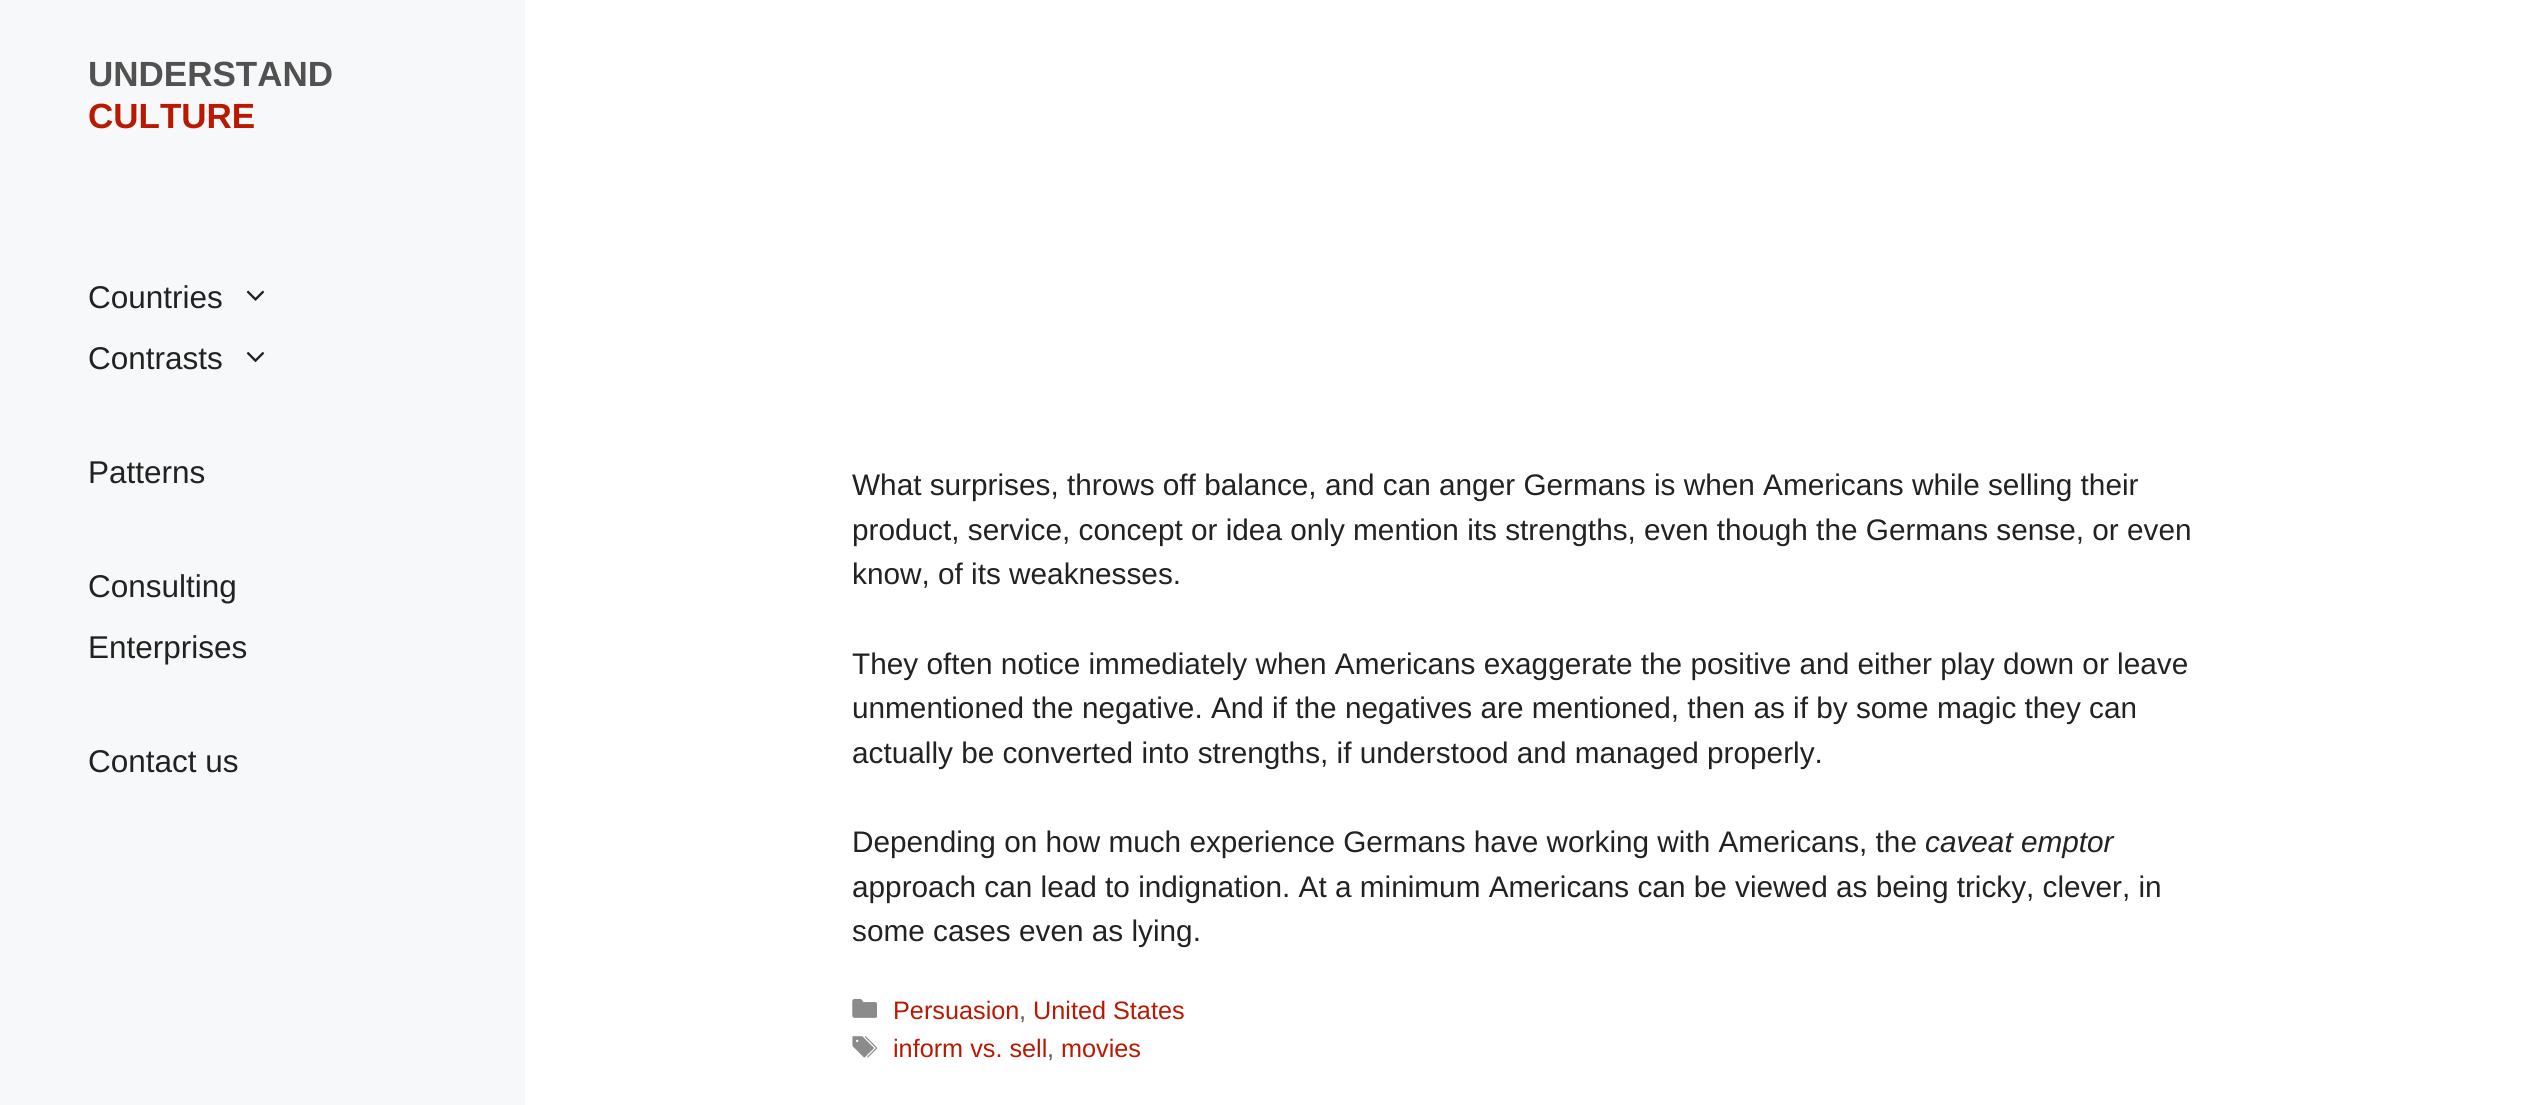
#include <cairo.h>
#include <math.h>
#include <stddef.h>

static cairo_t *ctx;

static void use_color(int r, int g, int b) {
    cairo_set_source_rgb(ctx, r / 255.0, g / 255.0, b / 255.0);
}

static void picture(const char *path, double x, double y, double w, double h) {
    cairo_surface_t *image = cairo_image_surface_create_from_png(path);
    cairo_save(ctx);
    cairo_set_source_surface(ctx, image, x, y);
    cairo_rectangle(ctx, x, y, w, h);
    cairo_fill(ctx);
    cairo_restore(ctx);
    cairo_surface_destroy(image);
}

int main(void) {
    cairo_surface_t *surface = cairo_image_surface_create(CAIRO_FORMAT_RGB24, 2523, 1105);
    ctx = cairo_create(surface);
    cairo_font_options_t *options = cairo_font_options_create();
    cairo_font_options_set_hint_metrics(options, CAIRO_HINT_METRICS_OFF);
    cairo_font_options_set_hint_style(options, CAIRO_HINT_STYLE_NONE);
    cairo_set_font_options(ctx, options);
    cairo_set_miter_limit(ctx, 4);
    use_color(255, 255, 255);
    cairo_paint(ctx);
    use_color(247, 248, 249);
    cairo_rectangle(ctx, 0, 0, 525, 1105);
    cairo_fill(ctx);
    cairo_select_font_face(ctx, "Liberation Sans", CAIRO_FONT_SLANT_NORMAL, CAIRO_FONT_WEIGHT_BOLD);
    cairo_set_font_size(ctx, 35);
    use_color(81, 81, 81);
    cairo_move_to(ctx, 88, 86);
    cairo_show_text(ctx, "UNDERSTAND");
    use_color(186, 24, 0);
    cairo_move_to(ctx, 88, 128);
    cairo_show_text(ctx, "CULTURE");
    cairo_select_font_face(ctx, "Liberation Sans", CAIRO_FONT_SLANT_NORMAL, CAIRO_FONT_WEIGHT_NORMAL);
    cairo_set_font_size(ctx, 31.5);
    use_color(34, 34, 34);
    cairo_move_to(ctx, 88, 308);
    cairo_show_text(ctx, "Countries");
    picture("img1.png", 246, 290, 19, 11);
    cairo_move_to(ctx, 88, 369);
    cairo_show_text(ctx, "Contrasts");
    picture("img2.png", 246, 352, 19, 10);
    cairo_move_to(ctx, 88, 483);
    cairo_show_text(ctx, "Patterns");
    cairo_move_to(ctx, 88, 597);
    cairo_show_text(ctx, "Consulting");
    cairo_move_to(ctx, 88, 658);
    cairo_show_text(ctx, "Enterprises");
    cairo_move_to(ctx, 88, 772);
    cairo_show_text(ctx, "Contact us");
    cairo_set_font_size(ctx, 29.75);
    cairo_move_to(ctx, 852, 495);
    cairo_show_text(ctx, "What surprises, throws off balance, and can anger Germans is when Americans while selling their");
    cairo_move_to(ctx, 852, 540);
    cairo_show_text(ctx, "product, service, concept or idea only mention its strengths, even though the Germans sense, or even");
    cairo_move_to(ctx, 852, 584);
    cairo_show_text(ctx, "know, of its weaknesses.");
    cairo_move_to(ctx, 852, 674);
    cairo_show_text(ctx, "They often notice immediately when Americans exaggerate the positive and either play down or leave");
    cairo_move_to(ctx, 852, 718);
    cairo_show_text(ctx, "unmentioned the negative. And if the negatives are mentioned, then as if by some magic they can");
    cairo_move_to(ctx, 852, 763);
    cairo_show_text(ctx, "actually be converted into strengths, if understood and managed properly.");
    cairo_move_to(ctx, 852, 852);
    cairo_show_text(ctx, "Depending on how much experience Germans have working with Americans, the");
    cairo_select_font_face(ctx, "Liberation Sans", CAIRO_FONT_SLANT_ITALIC, CAIRO_FONT_WEIGHT_NORMAL);
    cairo_move_to(ctx, 1925, 852);
    cairo_show_text(ctx, "caveat emptor");
    cairo_select_font_face(ctx, "Liberation Sans", CAIRO_FONT_SLANT_NORMAL, CAIRO_FONT_WEIGHT_NORMAL);
    cairo_move_to(ctx, 852, 897);
    cairo_show_text(ctx, "approach can lead to indignation. At a minimum Americans can be viewed as being tricky, clever, in");
    cairo_move_to(ctx, 852, 941);
    cairo_show_text(ctx, "some cases even as lying.");
    picture("img3.png", 852, 998, 25, 20);
    cairo_set_font_size(ctx, 25.25);
    use_color(186, 24, 0);
    cairo_move_to(ctx, 893, 1019);
    cairo_show_text(ctx, "Persuasion");
    use_color(89, 89, 89);
    cairo_move_to(ctx, 1019, 1019);
    cairo_show_text(ctx, ",");
    use_color(186, 24, 0);
    cairo_move_to(ctx, 1033, 1019);
    cairo_show_text(ctx, "United States");
    picture("img4.png", 852, 1036, 25, 22);
    cairo_move_to(ctx, 893, 1057);
    cairo_show_text(ctx, "inform vs. sell");
    use_color(89, 89, 89);
    cairo_move_to(ctx, 1047, 1057);
    cairo_show_text(ctx, ",");
    use_color(186, 24, 0);
    cairo_move_to(ctx, 1061, 1057);
    cairo_show_text(ctx, "movies");
    cairo_surface_write_to_png(surface, "result.png");
    cairo_font_options_destroy(options);
    cairo_destroy(ctx);
    cairo_surface_destroy(surface);
    return 0;
}
